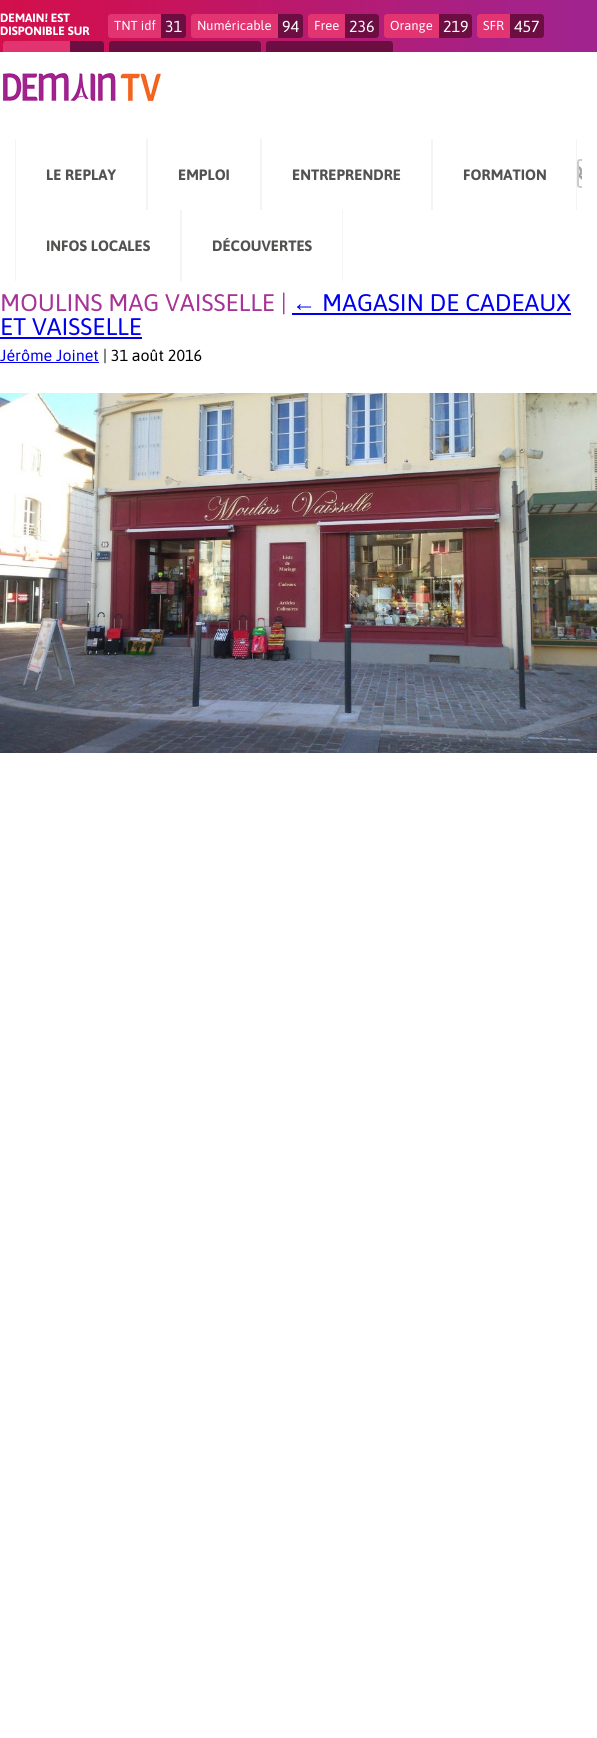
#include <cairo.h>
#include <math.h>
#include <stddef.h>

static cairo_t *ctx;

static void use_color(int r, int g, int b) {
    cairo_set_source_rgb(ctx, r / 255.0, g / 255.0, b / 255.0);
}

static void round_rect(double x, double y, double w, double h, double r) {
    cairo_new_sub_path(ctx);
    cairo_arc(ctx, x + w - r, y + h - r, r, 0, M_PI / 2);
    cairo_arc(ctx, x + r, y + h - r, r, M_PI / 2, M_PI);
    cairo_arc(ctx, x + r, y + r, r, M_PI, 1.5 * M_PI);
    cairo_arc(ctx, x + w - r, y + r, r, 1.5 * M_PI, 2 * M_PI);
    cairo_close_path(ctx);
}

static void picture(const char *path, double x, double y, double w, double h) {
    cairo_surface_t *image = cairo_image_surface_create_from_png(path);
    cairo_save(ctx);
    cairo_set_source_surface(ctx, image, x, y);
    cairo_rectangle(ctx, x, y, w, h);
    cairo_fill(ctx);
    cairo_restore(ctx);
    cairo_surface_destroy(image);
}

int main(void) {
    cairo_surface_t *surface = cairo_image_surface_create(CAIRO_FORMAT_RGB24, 597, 1738);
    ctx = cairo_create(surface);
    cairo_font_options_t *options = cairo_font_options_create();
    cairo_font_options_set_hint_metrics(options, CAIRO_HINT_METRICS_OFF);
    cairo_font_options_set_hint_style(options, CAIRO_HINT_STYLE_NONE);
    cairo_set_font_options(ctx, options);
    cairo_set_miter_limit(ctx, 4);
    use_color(255, 255, 255);
    cairo_paint(ctx);
    picture("img1.png", 0, 0, 597, 52);
    cairo_select_font_face(ctx, "Asap", CAIRO_FONT_SLANT_NORMAL, CAIRO_FONT_WEIGHT_BOLD);
    cairo_set_font_size(ctx, 12);
    use_color(255, 255, 255);
    cairo_move_to(ctx, 0, 22);
    cairo_show_text(ctx, "DEMAIN! EST");
    cairo_move_to(ctx, 0, 35);
    cairo_show_text(ctx, "DISPONIBLE SUR");
    use_color(225, 52, 112);
    cairo_new_path(ctx);
    cairo_move_to(ctx, 111, 14);
    cairo_line_to(ctx, 161, 14);
    cairo_line_to(ctx, 161, 38);
    cairo_line_to(ctx, 111, 38);
    cairo_curve_to(ctx, 109.5, 38, 108, 36.5, 108, 35);
    cairo_line_to(ctx, 108, 17);
    cairo_curve_to(ctx, 108, 15.5, 109.5, 14, 111, 14);
    cairo_close_path(ctx);
    cairo_fill(ctx);
    cairo_select_font_face(ctx, "Asap", CAIRO_FONT_SLANT_NORMAL, CAIRO_FONT_WEIGHT_NORMAL);
    cairo_set_font_size(ctx, 13);
    use_color(255, 255, 255);
    cairo_move_to(ctx, 114, 30);
    cairo_show_text(ctx, "TNT idf");
    use_color(109, 14, 67);
    cairo_new_path(ctx);
    cairo_move_to(ctx, 161, 14);
    cairo_line_to(ctx, 183, 14);
    cairo_curve_to(ctx, 184.5, 14, 186, 15.5, 186, 17);
    cairo_line_to(ctx, 186, 35);
    cairo_curve_to(ctx, 186, 36.5, 184.5, 38, 183, 38);
    cairo_line_to(ctx, 161, 38);
    cairo_close_path(ctx);
    cairo_fill(ctx);
    cairo_set_font_size(ctx, 16);
    use_color(255, 255, 255);
    cairo_move_to(ctx, 165, 32);
    cairo_show_text(ctx, "31");
    use_color(225, 52, 112);
    cairo_new_path(ctx);
    cairo_move_to(ctx, 194, 14);
    cairo_line_to(ctx, 278, 14);
    cairo_line_to(ctx, 278, 38);
    cairo_line_to(ctx, 194, 38);
    cairo_curve_to(ctx, 192.5, 38, 191, 36.5, 191, 35);
    cairo_line_to(ctx, 191, 17);
    cairo_curve_to(ctx, 191, 15.5, 192.5, 14, 194, 14);
    cairo_close_path(ctx);
    cairo_fill(ctx);
    cairo_set_font_size(ctx, 13);
    use_color(255, 255, 255);
    cairo_move_to(ctx, 197, 30);
    cairo_show_text(ctx, "Numéricable");
    use_color(109, 14, 67);
    cairo_new_path(ctx);
    cairo_move_to(ctx, 278, 14);
    cairo_line_to(ctx, 300, 14);
    cairo_curve_to(ctx, 301.5, 14, 303, 15.5, 303, 17);
    cairo_line_to(ctx, 303, 35);
    cairo_curve_to(ctx, 303, 36.5, 301.5, 38, 300, 38);
    cairo_line_to(ctx, 278, 38);
    cairo_close_path(ctx);
    cairo_fill(ctx);
    cairo_set_font_size(ctx, 16);
    use_color(255, 255, 255);
    cairo_move_to(ctx, 282, 32);
    cairo_show_text(ctx, "94");
    use_color(225, 52, 112);
    cairo_new_path(ctx);
    cairo_move_to(ctx, 311, 14);
    cairo_line_to(ctx, 345, 14);
    cairo_line_to(ctx, 345, 38);
    cairo_line_to(ctx, 311, 38);
    cairo_curve_to(ctx, 309.5, 38, 308, 36.5, 308, 35);
    cairo_line_to(ctx, 308, 17);
    cairo_curve_to(ctx, 308, 15.5, 309.5, 14, 311, 14);
    cairo_close_path(ctx);
    cairo_fill(ctx);
    cairo_set_font_size(ctx, 13);
    use_color(255, 255, 255);
    cairo_move_to(ctx, 314, 30);
    cairo_show_text(ctx, "Free");
    use_color(109, 14, 67);
    cairo_new_path(ctx);
    cairo_move_to(ctx, 345, 14);
    cairo_line_to(ctx, 376, 14);
    cairo_curve_to(ctx, 377.5, 14, 379, 15.5, 379, 17);
    cairo_line_to(ctx, 379, 35);
    cairo_curve_to(ctx, 379, 36.5, 377.5, 38, 376, 38);
    cairo_line_to(ctx, 345, 38);
    cairo_close_path(ctx);
    cairo_fill(ctx);
    cairo_set_font_size(ctx, 16);
    use_color(255, 255, 255);
    cairo_move_to(ctx, 349, 32);
    cairo_show_text(ctx, "236");
    use_color(225, 52, 112);
    cairo_new_path(ctx);
    cairo_move_to(ctx, 387, 14);
    cairo_line_to(ctx, 439, 14);
    cairo_line_to(ctx, 439, 38);
    cairo_line_to(ctx, 387, 38);
    cairo_curve_to(ctx, 385.5, 38, 384, 36.5, 384, 35);
    cairo_line_to(ctx, 384, 17);
    cairo_curve_to(ctx, 384, 15.5, 385.5, 14, 387, 14);
    cairo_close_path(ctx);
    cairo_fill(ctx);
    cairo_set_font_size(ctx, 13);
    use_color(255, 255, 255);
    cairo_move_to(ctx, 390, 30);
    cairo_show_text(ctx, "Orange");
    use_color(109, 14, 67);
    cairo_new_path(ctx);
    cairo_move_to(ctx, 439, 14);
    cairo_line_to(ctx, 469, 14);
    cairo_curve_to(ctx, 470.5, 14, 472, 15.5, 472, 17);
    cairo_line_to(ctx, 472, 35);
    cairo_curve_to(ctx, 472, 36.5, 470.5, 38, 469, 38);
    cairo_line_to(ctx, 439, 38);
    cairo_close_path(ctx);
    cairo_fill(ctx);
    cairo_set_font_size(ctx, 16);
    use_color(255, 255, 255);
    cairo_move_to(ctx, 443, 32);
    cairo_show_text(ctx, "219");
    use_color(225, 52, 112);
    cairo_new_path(ctx);
    cairo_move_to(ctx, 480, 14);
    cairo_line_to(ctx, 510, 14);
    cairo_line_to(ctx, 510, 38);
    cairo_line_to(ctx, 480, 38);
    cairo_curve_to(ctx, 478.5, 38, 477, 36.5, 477, 35);
    cairo_line_to(ctx, 477, 17);
    cairo_curve_to(ctx, 477, 15.5, 478.5, 14, 480, 14);
    cairo_close_path(ctx);
    cairo_fill(ctx);
    cairo_set_font_size(ctx, 13);
    use_color(255, 255, 255);
    cairo_move_to(ctx, 483, 30);
    cairo_show_text(ctx, "SFR");
    use_color(109, 14, 67);
    cairo_new_path(ctx);
    cairo_move_to(ctx, 510, 14);
    cairo_line_to(ctx, 541, 14);
    cairo_curve_to(ctx, 542.5, 14, 544, 15.5, 544, 17);
    cairo_line_to(ctx, 544, 35);
    cairo_curve_to(ctx, 544, 36.5, 542.5, 38, 541, 38);
    cairo_line_to(ctx, 510, 38);
    cairo_close_path(ctx);
    cairo_fill(ctx);
    cairo_set_font_size(ctx, 16);
    use_color(255, 255, 255);
    cairo_move_to(ctx, 514, 32);
    cairo_show_text(ctx, "457");
    use_color(225, 52, 112);
    cairo_new_path(ctx);
    cairo_move_to(ctx, 6, 41);
    cairo_line_to(ctx, 70, 41);
    cairo_line_to(ctx, 70, 52);
    cairo_line_to(ctx, 3, 52);
    cairo_line_to(ctx, 3, 44);
    cairo_curve_to(ctx, 3, 42.5, 4.5, 41, 6, 41);
    cairo_close_path(ctx);
    cairo_fill(ctx);
    use_color(109, 14, 67);
    cairo_new_path(ctx);
    cairo_move_to(ctx, 70, 41);
    cairo_line_to(ctx, 101, 41);
    cairo_curve_to(ctx, 102.5, 41, 104, 42.5, 104, 44);
    cairo_line_to(ctx, 104, 52);
    cairo_line_to(ctx, 70, 52);
    cairo_close_path(ctx);
    cairo_fill(ctx);
    cairo_new_path(ctx);
    cairo_move_to(ctx, 112, 41);
    cairo_line_to(ctx, 258, 41);
    cairo_curve_to(ctx, 259.5, 41, 261, 42.5, 261, 44);
    cairo_line_to(ctx, 261, 52);
    cairo_line_to(ctx, 109, 52);
    cairo_line_to(ctx, 109, 44);
    cairo_curve_to(ctx, 109, 42.5, 110.5, 41, 112, 41);
    cairo_close_path(ctx);
    cairo_fill(ctx);
    cairo_new_path(ctx);
    cairo_move_to(ctx, 269, 41);
    cairo_line_to(ctx, 390, 41);
    cairo_curve_to(ctx, 391.5, 41, 393, 42.5, 393, 44);
    cairo_line_to(ctx, 393, 52);
    cairo_line_to(ctx, 266, 52);
    cairo_line_to(ctx, 266, 44);
    cairo_curve_to(ctx, 266, 42.5, 267.5, 41, 269, 41);
    cairo_close_path(ctx);
    cairo_fill(ctx);
    picture("img2.png", 3, 73, 158, 28);
    use_color(244, 244, 244);
    cairo_rectangle(ctx, 146, 139, 2, 71);
    cairo_fill(ctx);
    cairo_rectangle(ctx, 15, 139, 1, 142);
    cairo_fill(ctx);
    cairo_select_font_face(ctx, "Asap", CAIRO_FONT_SLANT_NORMAL, CAIRO_FONT_WEIGHT_BOLD);
    cairo_set_font_size(ctx, 15);
    use_color(82, 82, 81);
    cairo_move_to(ctx, 46, 180);
    cairo_show_text(ctx, "LE REPLAY");
    use_color(244, 244, 244);
    cairo_rectangle(ctx, 260, 139, 2, 71);
    cairo_fill(ctx);
    use_color(82, 82, 81);
    cairo_move_to(ctx, 178, 180);
    cairo_show_text(ctx, "EMPLOI");
    use_color(244, 244, 244);
    cairo_rectangle(ctx, 431, 139, 2, 71);
    cairo_fill(ctx);
    use_color(82, 82, 81);
    cairo_move_to(ctx, 292, 180);
    cairo_show_text(ctx, "ENTREPRENDRE");
    use_color(244, 244, 244);
    cairo_rectangle(ctx, 576, 139, 1, 71);
    cairo_fill(ctx);
    use_color(82, 82, 81);
    cairo_move_to(ctx, 463, 180);
    cairo_show_text(ctx, "FORMATION");
    use_color(244, 244, 244);
    cairo_rectangle(ctx, 180, 210, 2, 71);
    cairo_fill(ctx);
    use_color(82, 82, 81);
    cairo_move_to(ctx, 46, 251);
    cairo_show_text(ctx, "INFOS LOCALES");
    use_color(244, 244, 244);
    cairo_rectangle(ctx, 342, 210, 1, 71);
    cairo_fill(ctx);
    use_color(82, 82, 81);
    cairo_move_to(ctx, 212, 251);
    cairo_show_text(ctx, "DÉCOUVERTES");
    picture("img3.png", 579, 166, 3, 14);
    cairo_save(ctx);
    cairo_rectangle(ctx, 577, 139, 5, 54);
    cairo_clip(ctx);
    round_rect(578, 160, 11, 27, 2);
    use_color(204, 204, 204);
    cairo_stroke(ctx);
    cairo_restore(ctx);
    cairo_select_font_face(ctx, "Asap", CAIRO_FONT_SLANT_NORMAL, CAIRO_FONT_WEIGHT_NORMAL);
    cairo_set_font_size(ctx, 24);
    use_color(167, 51, 150);
    cairo_move_to(ctx, 0, 311);
    cairo_show_text(ctx, "MOULINS MAG VAISSELLE |");
    cairo_select_font_face(ctx, "Liberation Sans", CAIRO_FONT_SLANT_NORMAL, CAIRO_FONT_WEIGHT_NORMAL);
    use_color(0, 0, 238);
    cairo_move_to(ctx, 292, 311);
    cairo_show_text(ctx, "←");
    cairo_rectangle(ctx, 292, 313, 279, 2);
    cairo_fill(ctx);
    cairo_select_font_face(ctx, "Asap", CAIRO_FONT_SLANT_NORMAL, CAIRO_FONT_WEIGHT_NORMAL);
    cairo_move_to(ctx, 322, 311);
    cairo_show_text(ctx, "MAGASIN DE CADEAUX");
    cairo_move_to(ctx, 0, 335);
    cairo_show_text(ctx, "ET VAISSELLE");
    cairo_rectangle(ctx, 0, 337, 142, 2);
    cairo_fill(ctx);
    cairo_set_font_size(ctx, 16);
    cairo_move_to(ctx, 0, 361);
    cairo_show_text(ctx, "Jérôme Joinet");
    cairo_rectangle(ctx, 0, 362, 99, 1);
    cairo_fill(ctx);
    use_color(0, 0, 0);
    cairo_move_to(ctx, 103, 361);
    cairo_show_text(ctx, "| 31 août 2016");
    picture("img4.png", 0, 393, 597, 360);
    cairo_surface_write_to_png(surface, "result.png");
    cairo_font_options_destroy(options);
    cairo_destroy(ctx);
    cairo_surface_destroy(surface);
    return 0;
}
